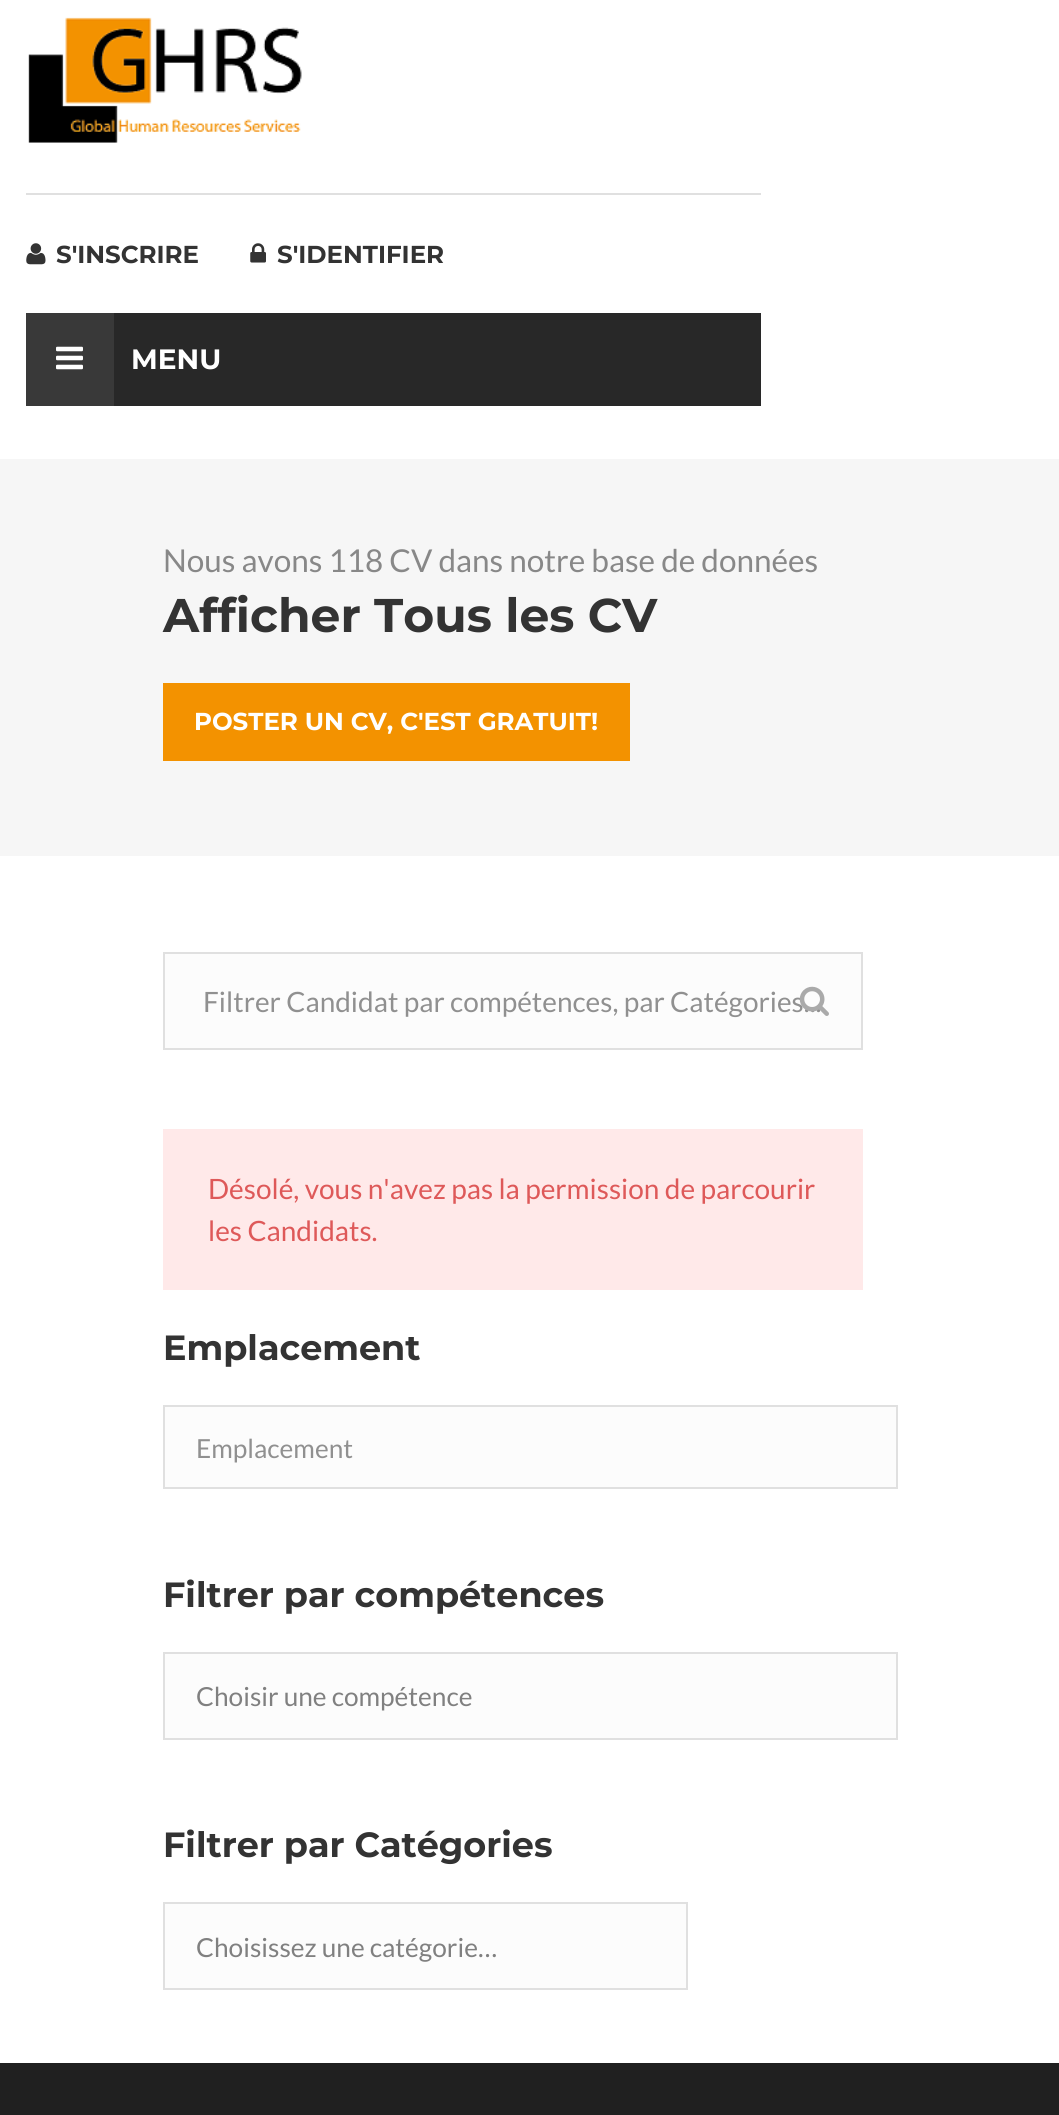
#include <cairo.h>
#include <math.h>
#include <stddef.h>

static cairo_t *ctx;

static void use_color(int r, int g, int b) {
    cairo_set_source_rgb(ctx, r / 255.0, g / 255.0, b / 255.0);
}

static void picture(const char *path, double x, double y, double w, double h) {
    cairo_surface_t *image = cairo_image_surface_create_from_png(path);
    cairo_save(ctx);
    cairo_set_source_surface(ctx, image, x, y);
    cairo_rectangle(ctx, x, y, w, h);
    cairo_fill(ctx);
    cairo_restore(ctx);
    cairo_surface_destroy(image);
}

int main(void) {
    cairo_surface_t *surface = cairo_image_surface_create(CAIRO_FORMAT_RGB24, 1059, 2115);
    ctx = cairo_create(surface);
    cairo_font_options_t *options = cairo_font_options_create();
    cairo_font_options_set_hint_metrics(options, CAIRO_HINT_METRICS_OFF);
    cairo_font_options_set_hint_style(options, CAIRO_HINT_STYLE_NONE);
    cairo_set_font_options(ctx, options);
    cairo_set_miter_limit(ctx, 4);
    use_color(255, 255, 255);
    cairo_paint(ctx);
    use_color(224, 224, 224);
    cairo_rectangle(ctx, 26, 193, 735, 2);
    cairo_fill(ctx);
    picture("img1.png", 28, 17, 274, 126);
    picture("img2.png", 26, 243, 20, 22);
    cairo_select_font_face(ctx, "Montserrat", CAIRO_FONT_SLANT_NORMAL, CAIRO_FONT_WEIGHT_BOLD);
    cairo_set_font_size(ctx, 24.5);
    use_color(51, 51, 51);
    cairo_move_to(ctx, 56, 263);
    cairo_show_text(ctx, "S'INSCRIRE");
    picture("img3.png", 250, 243, 16, 20);
    cairo_move_to(ctx, 277, 263);
    cairo_show_text(ctx, "S'IDENTIFIER");
    use_color(40, 40, 40);
    cairo_rectangle(ctx, 114, 313, 647, 93);
    cairo_fill(ctx);
    use_color(57, 57, 57);
    cairo_rectangle(ctx, 26, 313, 88, 93);
    cairo_fill(ctx);
    picture("img4.png", 56, 346, 27, 24);
    cairo_set_font_size(ctx, 28);
    use_color(255, 255, 255);
    cairo_move_to(ctx, 131, 369);
    cairo_show_text(ctx, "MENU");
    use_color(246, 246, 246);
    cairo_rectangle(ctx, 0, 459, 1059, 397);
    cairo_fill(ctx);
    cairo_select_font_face(ctx, "Lato", CAIRO_FONT_SLANT_NORMAL, CAIRO_FONT_WEIGHT_NORMAL);
    cairo_set_font_size(ctx, 31.5);
    use_color(136, 136, 136);
    cairo_move_to(ctx, 163, 572);
    cairo_show_text(ctx, "Nous avons 118 CV dans notre base de données");
    cairo_select_font_face(ctx, "Montserrat", CAIRO_FONT_SLANT_NORMAL, CAIRO_FONT_WEIGHT_BOLD);
    cairo_set_font_size(ctx, 47.25);
    use_color(51, 51, 51);
    cairo_move_to(ctx, 163, 632);
    cairo_show_text(ctx, "Afficher Tous les CV");
    use_color(243, 146, 0);
    cairo_rectangle(ctx, 163, 683, 467, 78);
    cairo_fill(ctx);
    cairo_set_font_size(ctx, 24.5);
    use_color(255, 255, 255);
    cairo_move_to(ctx, 194, 730);
    cairo_show_text(ctx, "POSTER UN CV, C'EST GRATUIT!");
    use_color(252, 252, 252);
    cairo_rectangle(ctx, 164, 953, 698, 96);
    cairo_fill_preserve(ctx);
    use_color(224, 224, 224);
    cairo_stroke(ctx);
    cairo_select_font_face(ctx, "Lato", CAIRO_FONT_SLANT_NORMAL, CAIRO_FONT_WEIGHT_NORMAL);
    cairo_set_font_size(ctx, 28);
    use_color(144, 144, 144);
    cairo_move_to(ctx, 203, 1012);
    cairo_show_text(ctx, "Filtrer Candidat par compétences, par Catégories...");
    picture("img5.png", 799, 986, 30, 30);
    use_color(255, 233, 233);
    cairo_rectangle(ctx, 163, 1129, 700, 161);
    cairo_fill(ctx);
    use_color(222, 89, 89);
    cairo_move_to(ctx, 208, 1199);
    cairo_show_text(ctx, "Désolé, vous n'avez pas la permission de parcourir");
    cairo_move_to(ctx, 208, 1241);
    cairo_show_text(ctx, "les Candidats.");
    cairo_select_font_face(ctx, "Montserrat", CAIRO_FONT_SLANT_NORMAL, CAIRO_FONT_WEIGHT_BOLD);
    cairo_set_font_size(ctx, 35);
    use_color(51, 51, 51);
    cairo_move_to(ctx, 163, 1360);
    cairo_show_text(ctx, "Emplacement");
    use_color(252, 252, 252);
    cairo_rectangle(ctx, 164, 1406, 733, 82);
    cairo_fill_preserve(ctx);
    use_color(224, 224, 224);
    cairo_stroke(ctx);
    cairo_select_font_face(ctx, "Lato", CAIRO_FONT_SLANT_NORMAL, CAIRO_FONT_WEIGHT_NORMAL);
    cairo_set_font_size(ctx, 26.25);
    use_color(144, 144, 144);
    cairo_move_to(ctx, 196, 1458);
    cairo_show_text(ctx, "Emplacement");
    cairo_select_font_face(ctx, "Montserrat", CAIRO_FONT_SLANT_NORMAL, CAIRO_FONT_WEIGHT_BOLD);
    cairo_set_font_size(ctx, 35);
    use_color(51, 51, 51);
    cairo_move_to(ctx, 163, 1607);
    cairo_show_text(ctx, "Filtrer par compétences");
    use_color(252, 252, 252);
    cairo_rectangle(ctx, 164, 1653, 733, 86);
    cairo_fill_preserve(ctx);
    use_color(224, 224, 224);
    cairo_stroke(ctx);
    cairo_select_font_face(ctx, "Lato", CAIRO_FONT_SLANT_NORMAL, CAIRO_FONT_WEIGHT_NORMAL);
    cairo_set_font_size(ctx, 26.25);
    use_color(128, 128, 128);
    cairo_move_to(ctx, 196, 1706);
    cairo_show_text(ctx, "Choisir une compétence");
    cairo_select_font_face(ctx, "Montserrat", CAIRO_FONT_SLANT_NORMAL, CAIRO_FONT_WEIGHT_BOLD);
    cairo_set_font_size(ctx, 35);
    use_color(51, 51, 51);
    cairo_move_to(ctx, 163, 1857);
    cairo_show_text(ctx, "Filtrer par Catégories");
    use_color(252, 252, 252);
    cairo_rectangle(ctx, 164, 1903, 523, 86);
    cairo_fill_preserve(ctx);
    use_color(224, 224, 224);
    cairo_stroke(ctx);
    cairo_select_font_face(ctx, "Lato", CAIRO_FONT_SLANT_NORMAL, CAIRO_FONT_WEIGHT_NORMAL);
    cairo_set_font_size(ctx, 26.25);
    use_color(128, 128, 128);
    cairo_move_to(ctx, 196, 1957);
    cairo_show_text(ctx, "Choisissez une catégorie…");
    use_color(32, 32, 32);
    cairo_rectangle(ctx, 0, 2063, 1059, 52);
    cairo_fill(ctx);
    cairo_surface_write_to_png(surface, "result.png");
    cairo_font_options_destroy(options);
    cairo_destroy(ctx);
    cairo_surface_destroy(surface);
    return 0;
}
